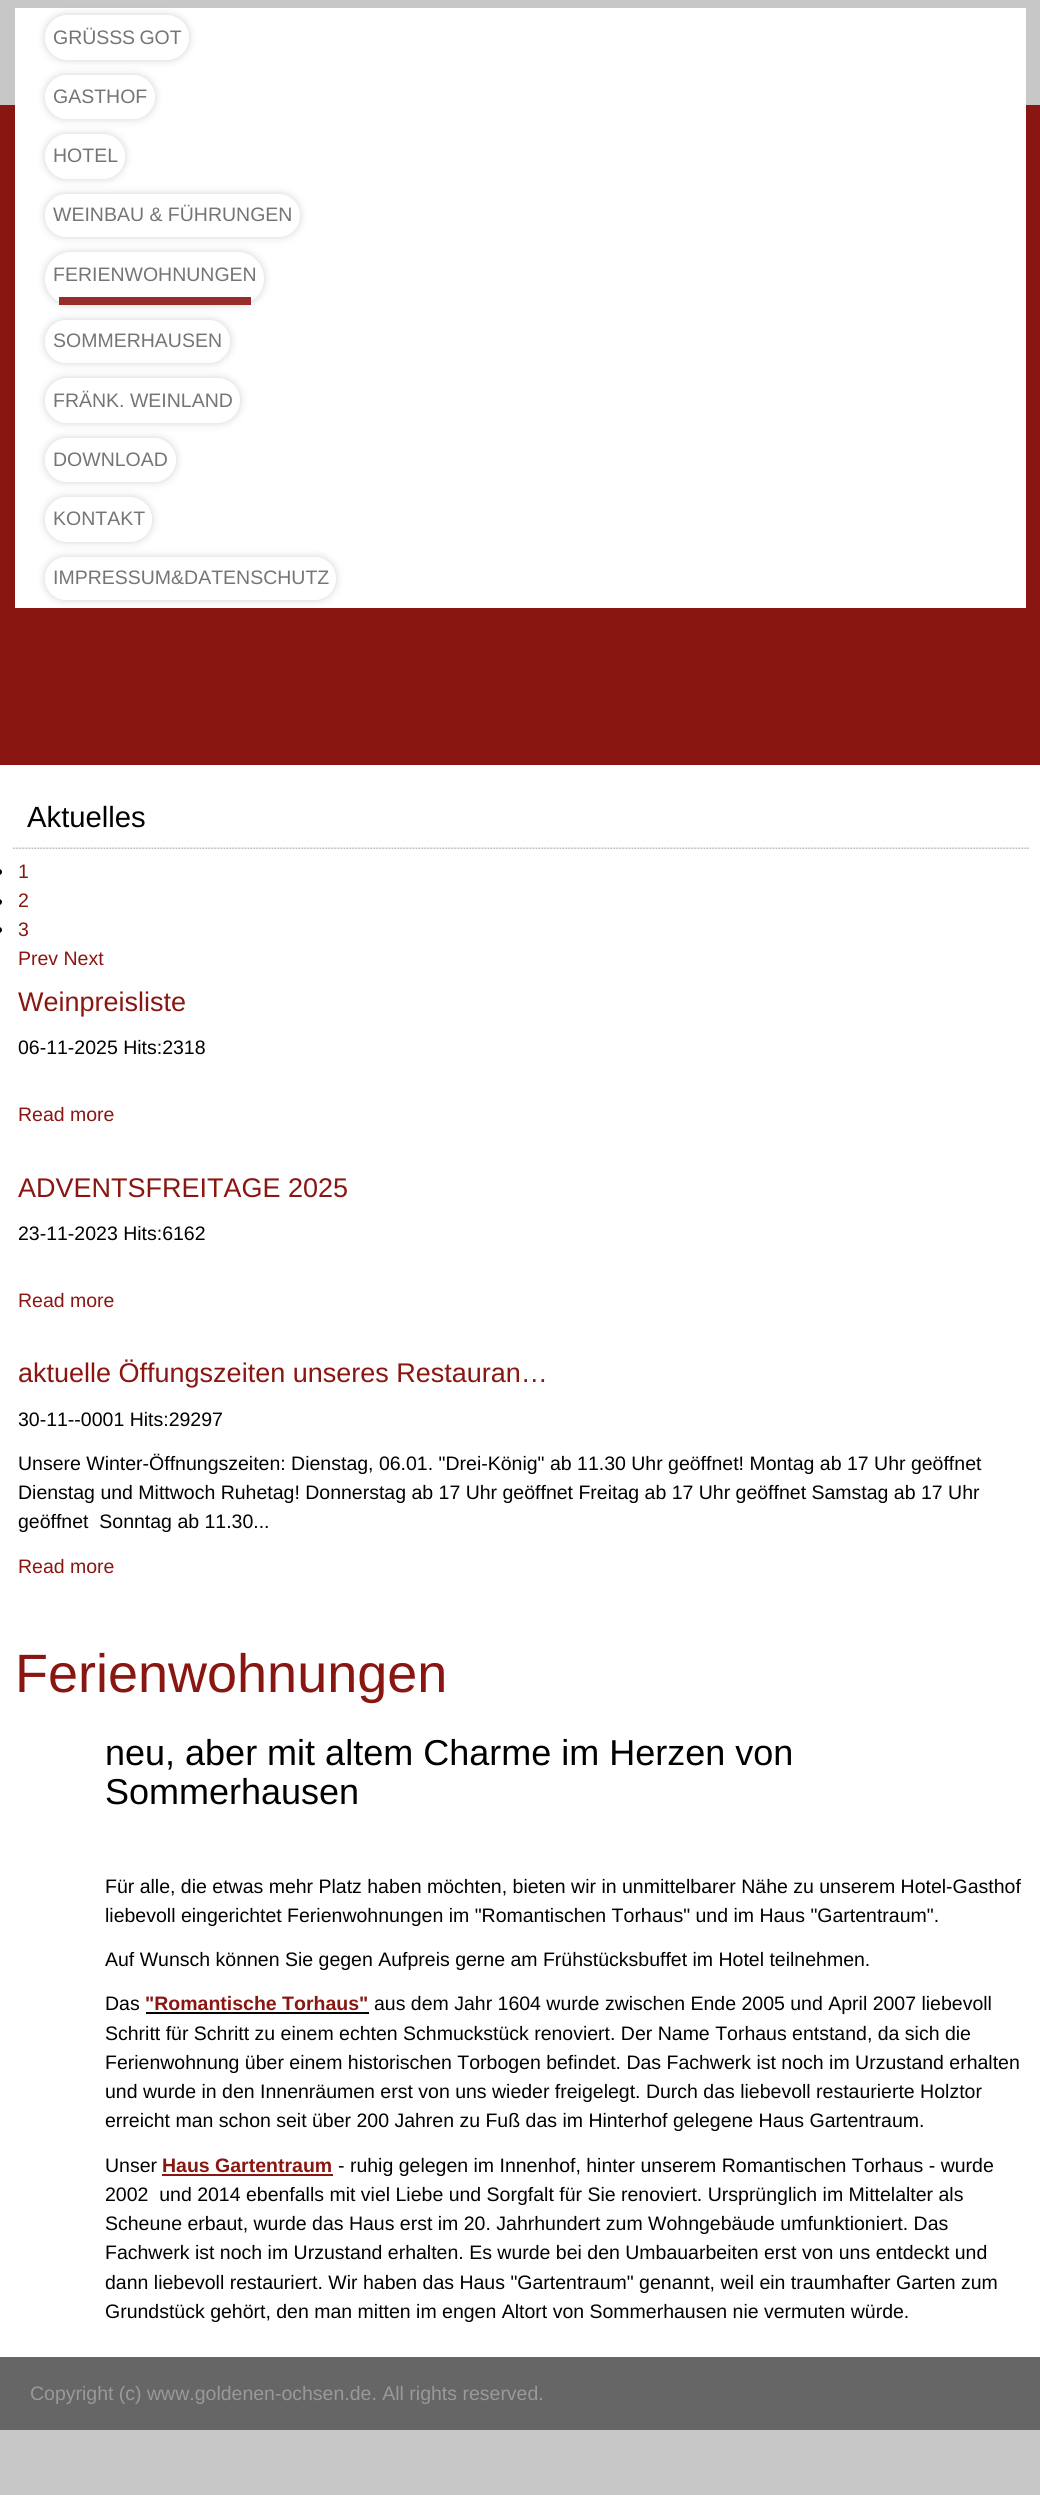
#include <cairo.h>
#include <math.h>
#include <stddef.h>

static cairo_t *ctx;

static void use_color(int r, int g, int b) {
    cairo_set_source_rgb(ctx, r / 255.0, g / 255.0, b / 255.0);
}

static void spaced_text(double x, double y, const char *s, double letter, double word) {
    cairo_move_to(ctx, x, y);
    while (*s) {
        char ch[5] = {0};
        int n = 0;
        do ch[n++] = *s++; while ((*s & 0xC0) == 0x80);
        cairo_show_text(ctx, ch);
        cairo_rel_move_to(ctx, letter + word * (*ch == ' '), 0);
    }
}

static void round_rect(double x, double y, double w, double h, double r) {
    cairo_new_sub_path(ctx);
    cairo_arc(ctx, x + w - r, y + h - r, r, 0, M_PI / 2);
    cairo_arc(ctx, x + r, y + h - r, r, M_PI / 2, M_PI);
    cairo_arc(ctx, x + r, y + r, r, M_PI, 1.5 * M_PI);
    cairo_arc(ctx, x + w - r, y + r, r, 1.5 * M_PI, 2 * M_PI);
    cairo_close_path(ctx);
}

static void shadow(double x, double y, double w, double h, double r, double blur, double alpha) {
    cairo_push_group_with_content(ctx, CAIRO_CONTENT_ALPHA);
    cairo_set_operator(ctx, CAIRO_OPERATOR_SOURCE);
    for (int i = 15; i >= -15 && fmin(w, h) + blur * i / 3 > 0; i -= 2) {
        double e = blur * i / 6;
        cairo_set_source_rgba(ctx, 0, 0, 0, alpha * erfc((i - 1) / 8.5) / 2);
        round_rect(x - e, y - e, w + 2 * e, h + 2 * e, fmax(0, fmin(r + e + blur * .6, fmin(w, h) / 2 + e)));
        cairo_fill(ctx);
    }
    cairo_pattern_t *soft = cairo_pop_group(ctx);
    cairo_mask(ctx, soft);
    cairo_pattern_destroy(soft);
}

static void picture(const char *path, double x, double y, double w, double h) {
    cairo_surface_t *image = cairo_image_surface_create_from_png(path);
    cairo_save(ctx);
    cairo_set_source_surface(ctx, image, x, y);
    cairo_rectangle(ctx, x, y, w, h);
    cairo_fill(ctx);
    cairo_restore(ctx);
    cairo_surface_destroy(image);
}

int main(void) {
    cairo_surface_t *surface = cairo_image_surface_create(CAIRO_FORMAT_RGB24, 1040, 2495);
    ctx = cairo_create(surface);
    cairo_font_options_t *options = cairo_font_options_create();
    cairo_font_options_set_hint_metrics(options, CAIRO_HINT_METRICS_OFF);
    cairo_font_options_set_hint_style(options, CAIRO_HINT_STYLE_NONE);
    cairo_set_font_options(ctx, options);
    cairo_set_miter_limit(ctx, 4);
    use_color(199, 199, 199);
    cairo_paint(ctx);
    use_color(138, 22, 18);
    cairo_rectangle(ctx, 0, 105, 1040, 660);
    cairo_fill(ctx);
    use_color(255, 255, 255);
    cairo_rectangle(ctx, 15, 8, 1011, 600);
    cairo_fill(ctx);
    cairo_save(ctx);
    cairo_set_fill_rule(ctx, CAIRO_FILL_RULE_EVEN_ODD);
    cairo_new_path(ctx);
    cairo_move_to(ctx, 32, 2);
    cairo_line_to(ctx, 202, 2);
    cairo_line_to(ctx, 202, 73);
    cairo_line_to(ctx, 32, 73);
    cairo_close_path(ctx);
    cairo_move_to(ctx, 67.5, 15);
    cairo_line_to(ctx, 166.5, 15);
    cairo_curve_to(ctx, 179, 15, 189, 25, 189, 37.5);
    cairo_curve_to(ctx, 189, 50, 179, 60, 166.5, 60);
    cairo_line_to(ctx, 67.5, 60);
    cairo_curve_to(ctx, 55, 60, 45, 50, 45, 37.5);
    cairo_curve_to(ctx, 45, 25, 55, 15, 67.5, 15);
    cairo_close_path(ctx);
    cairo_clip(ctx);
    use_color(0, 0, 0);
    shadow(45, 15, 144, 45, 22.5, 4, 0.18);
    cairo_restore(ctx);
    cairo_select_font_face(ctx, "Liberation Sans", CAIRO_FONT_SLANT_NORMAL, CAIRO_FONT_WEIGHT_NORMAL);
    cairo_set_font_size(ctx, 19.5);
    use_color(117, 117, 117);
    cairo_move_to(ctx, 53, 44);
    cairo_show_text(ctx, "GRÜSS");
    spaced_text(122, 44, "S GOT", 0, -1);
    cairo_save(ctx);
    cairo_set_fill_rule(ctx, CAIRO_FILL_RULE_EVEN_ODD);
    cairo_new_path(ctx);
    cairo_move_to(ctx, 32, 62);
    cairo_line_to(ctx, 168, 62);
    cairo_line_to(ctx, 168, 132);
    cairo_line_to(ctx, 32, 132);
    cairo_close_path(ctx);
    cairo_move_to(ctx, 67, 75);
    cairo_line_to(ctx, 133, 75);
    cairo_curve_to(ctx, 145, 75, 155, 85, 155, 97);
    cairo_curve_to(ctx, 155, 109, 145, 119, 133, 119);
    cairo_line_to(ctx, 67, 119);
    cairo_curve_to(ctx, 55, 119, 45, 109, 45, 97);
    cairo_curve_to(ctx, 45, 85, 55, 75, 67, 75);
    cairo_close_path(ctx);
    cairo_clip(ctx);
    use_color(25, 25, 25);
    shadow(45, 75, 110, 44, 22, 4, 0.2);
    cairo_restore(ctx);
    cairo_move_to(ctx, 53, 103);
    cairo_show_text(ctx, "GASTHOF");
    cairo_save(ctx);
    cairo_set_fill_rule(ctx, CAIRO_FILL_RULE_EVEN_ODD);
    cairo_new_path(ctx);
    cairo_move_to(ctx, 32, 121);
    cairo_line_to(ctx, 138, 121);
    cairo_line_to(ctx, 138, 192);
    cairo_line_to(ctx, 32, 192);
    cairo_close_path(ctx);
    cairo_move_to(ctx, 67.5, 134);
    cairo_line_to(ctx, 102.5, 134);
    cairo_curve_to(ctx, 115, 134, 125, 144, 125, 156.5);
    cairo_curve_to(ctx, 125, 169, 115, 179, 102.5, 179);
    cairo_line_to(ctx, 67.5, 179);
    cairo_curve_to(ctx, 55, 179, 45, 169, 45, 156.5);
    cairo_curve_to(ctx, 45, 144, 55, 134, 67.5, 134);
    cairo_close_path(ctx);
    cairo_clip(ctx);
    use_color(25, 25, 25);
    shadow(45, 134, 80, 45, 22.5, 4, 0.2);
    cairo_restore(ctx);
    cairo_move_to(ctx, 53, 162);
    cairo_show_text(ctx, "HOTEL");
    cairo_save(ctx);
    cairo_set_fill_rule(ctx, CAIRO_FILL_RULE_EVEN_ODD);
    cairo_new_path(ctx);
    cairo_move_to(ctx, 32, 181);
    cairo_line_to(ctx, 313, 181);
    cairo_line_to(ctx, 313, 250);
    cairo_line_to(ctx, 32, 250);
    cairo_close_path(ctx);
    cairo_move_to(ctx, 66.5, 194);
    cairo_line_to(ctx, 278.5, 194);
    cairo_curve_to(ctx, 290.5, 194, 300, 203.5, 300, 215.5);
    cairo_curve_to(ctx, 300, 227.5, 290.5, 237, 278.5, 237);
    cairo_line_to(ctx, 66.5, 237);
    cairo_curve_to(ctx, 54.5, 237, 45, 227.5, 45, 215.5);
    cairo_curve_to(ctx, 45, 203.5, 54.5, 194, 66.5, 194);
    cairo_close_path(ctx);
    cairo_clip(ctx);
    use_color(25, 25, 25);
    shadow(45, 194, 255, 43, 21.5, 4, 0.2);
    cairo_restore(ctx);
    cairo_move_to(ctx, 53, 221);
    cairo_show_text(ctx, "WEINBAU & FÜHRUNGEN");
    cairo_save(ctx);
    cairo_set_fill_rule(ctx, CAIRO_FILL_RULE_EVEN_ODD);
    cairo_new_path(ctx);
    cairo_move_to(ctx, 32, 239);
    cairo_line_to(ctx, 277, 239);
    cairo_line_to(ctx, 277, 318);
    cairo_line_to(ctx, 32, 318);
    cairo_close_path(ctx);
    cairo_move_to(ctx, 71.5, 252);
    cairo_line_to(ctx, 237.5, 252);
    cairo_curve_to(ctx, 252, 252, 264, 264, 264, 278.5);
    cairo_curve_to(ctx, 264, 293, 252, 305, 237.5, 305);
    cairo_line_to(ctx, 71.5, 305);
    cairo_curve_to(ctx, 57, 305, 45, 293, 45, 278.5);
    cairo_curve_to(ctx, 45, 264, 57, 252, 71.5, 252);
    cairo_close_path(ctx);
    cairo_clip(ctx);
    use_color(25, 25, 25);
    shadow(45, 252, 219, 53, 26.5, 4, 0.2);
    cairo_restore(ctx);
    use_color(150, 45, 42);
    cairo_rectangle(ctx, 59, 297, 192, 8);
    cairo_fill(ctx);
    use_color(117, 117, 117);
    cairo_move_to(ctx, 53, 281);
    cairo_show_text(ctx, "FERIENWOHNUNGEN");
    cairo_save(ctx);
    cairo_set_fill_rule(ctx, CAIRO_FILL_RULE_EVEN_ODD);
    cairo_new_path(ctx);
    cairo_move_to(ctx, 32, 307);
    cairo_line_to(ctx, 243, 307);
    cairo_line_to(ctx, 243, 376);
    cairo_line_to(ctx, 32, 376);
    cairo_close_path(ctx);
    cairo_move_to(ctx, 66.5, 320);
    cairo_line_to(ctx, 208.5, 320);
    cairo_curve_to(ctx, 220.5, 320, 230, 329.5, 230, 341.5);
    cairo_curve_to(ctx, 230, 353.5, 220.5, 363, 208.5, 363);
    cairo_line_to(ctx, 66.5, 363);
    cairo_curve_to(ctx, 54.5, 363, 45, 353.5, 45, 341.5);
    cairo_curve_to(ctx, 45, 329.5, 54.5, 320, 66.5, 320);
    cairo_close_path(ctx);
    cairo_clip(ctx);
    use_color(25, 25, 25);
    shadow(45, 320, 185, 43, 21.5, 4, 0.2);
    cairo_restore(ctx);
    cairo_move_to(ctx, 53, 347);
    cairo_show_text(ctx, "SOMMERHAUSEN");
    cairo_save(ctx);
    cairo_set_fill_rule(ctx, CAIRO_FILL_RULE_EVEN_ODD);
    cairo_new_path(ctx);
    cairo_move_to(ctx, 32, 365);
    cairo_line_to(ctx, 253, 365);
    cairo_line_to(ctx, 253, 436);
    cairo_line_to(ctx, 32, 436);
    cairo_close_path(ctx);
    cairo_move_to(ctx, 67.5, 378);
    cairo_line_to(ctx, 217.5, 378);
    cairo_curve_to(ctx, 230, 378, 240, 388, 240, 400.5);
    cairo_curve_to(ctx, 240, 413, 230, 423, 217.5, 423);
    cairo_line_to(ctx, 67.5, 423);
    cairo_curve_to(ctx, 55, 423, 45, 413, 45, 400.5);
    cairo_curve_to(ctx, 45, 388, 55, 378, 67.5, 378);
    cairo_close_path(ctx);
    cairo_clip(ctx);
    use_color(25, 25, 25);
    shadow(45, 378, 195, 45, 22.5, 4, 0.2);
    cairo_restore(ctx);
    cairo_move_to(ctx, 53, 407);
    cairo_show_text(ctx, "FRÄNK. WEINLAND");
    cairo_save(ctx);
    cairo_set_fill_rule(ctx, CAIRO_FILL_RULE_EVEN_ODD);
    cairo_new_path(ctx);
    cairo_move_to(ctx, 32, 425);
    cairo_line_to(ctx, 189, 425);
    cairo_line_to(ctx, 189, 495);
    cairo_line_to(ctx, 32, 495);
    cairo_close_path(ctx);
    cairo_move_to(ctx, 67, 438);
    cairo_line_to(ctx, 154, 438);
    cairo_curve_to(ctx, 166, 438, 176, 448, 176, 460);
    cairo_curve_to(ctx, 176, 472, 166, 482, 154, 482);
    cairo_line_to(ctx, 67, 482);
    cairo_curve_to(ctx, 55, 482, 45, 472, 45, 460);
    cairo_curve_to(ctx, 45, 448, 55, 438, 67, 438);
    cairo_close_path(ctx);
    cairo_clip(ctx);
    use_color(25, 25, 25);
    shadow(45, 438, 131, 44, 22, 4, 0.2);
    cairo_restore(ctx);
    cairo_move_to(ctx, 53, 466);
    cairo_show_text(ctx, "DOWNLOAD");
    cairo_save(ctx);
    cairo_set_fill_rule(ctx, CAIRO_FILL_RULE_EVEN_ODD);
    cairo_new_path(ctx);
    cairo_move_to(ctx, 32, 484);
    cairo_line_to(ctx, 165, 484);
    cairo_line_to(ctx, 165, 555);
    cairo_line_to(ctx, 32, 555);
    cairo_close_path(ctx);
    cairo_move_to(ctx, 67.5, 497);
    cairo_line_to(ctx, 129.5, 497);
    cairo_curve_to(ctx, 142, 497, 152, 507, 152, 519.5);
    cairo_curve_to(ctx, 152, 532, 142, 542, 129.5, 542);
    cairo_line_to(ctx, 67.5, 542);
    cairo_curve_to(ctx, 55, 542, 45, 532, 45, 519.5);
    cairo_curve_to(ctx, 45, 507, 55, 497, 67.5, 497);
    cairo_close_path(ctx);
    cairo_clip(ctx);
    use_color(25, 25, 25);
    shadow(45, 497, 107, 45, 22.5, 4, 0.2);
    cairo_restore(ctx);
    cairo_move_to(ctx, 53, 525);
    cairo_show_text(ctx, "KONTAKT");
    cairo_save(ctx);
    cairo_set_fill_rule(ctx, CAIRO_FILL_RULE_EVEN_ODD);
    cairo_new_path(ctx);
    cairo_move_to(ctx, 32, 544);
    cairo_line_to(ctx, 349, 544);
    cairo_line_to(ctx, 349, 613);
    cairo_line_to(ctx, 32, 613);
    cairo_close_path(ctx);
    cairo_move_to(ctx, 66.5, 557);
    cairo_line_to(ctx, 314.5, 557);
    cairo_curve_to(ctx, 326.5, 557, 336, 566.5, 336, 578.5);
    cairo_curve_to(ctx, 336, 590.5, 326.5, 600, 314.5, 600);
    cairo_line_to(ctx, 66.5, 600);
    cairo_curve_to(ctx, 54.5, 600, 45, 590.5, 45, 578.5);
    cairo_curve_to(ctx, 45, 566.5, 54.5, 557, 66.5, 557);
    cairo_close_path(ctx);
    cairo_clip(ctx);
    use_color(25, 25, 25);
    shadow(45, 557, 291, 43, 21.5, 4, 0.2);
    cairo_restore(ctx);
    cairo_move_to(ctx, 53, 584);
    cairo_show_text(ctx, "IMPRESSUM&DATENSCHUTZ");
    use_color(255, 255, 255);
    cairo_rectangle(ctx, 0, 765, 1040, 1592);
    cairo_fill(ctx);
    picture("img1.png", 12, 847, 1017, 2);
    cairo_set_font_size(ctx, 29.25);
    use_color(0, 0, 0);
    cairo_move_to(ctx, 27, 827);
    cairo_show_text(ctx, "Aktuelles");
    round_rect(-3, 869, 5, 6, 3);
    cairo_fill(ctx);
    cairo_set_font_size(ctx, 19.5);
    use_color(138, 22, 18);
    cairo_move_to(ctx, 18, 878);
    cairo_show_text(ctx, "1");
    use_color(0, 0, 0);
    round_rect(-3, 899, 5, 6, 3);
    cairo_fill(ctx);
    use_color(138, 22, 18);
    cairo_move_to(ctx, 18, 907);
    cairo_show_text(ctx, "2");
    use_color(0, 0, 0);
    round_rect(-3, 927, 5, 6, 3);
    cairo_fill(ctx);
    use_color(138, 22, 18);
    cairo_move_to(ctx, 18, 936);
    cairo_show_text(ctx, "3");
    cairo_move_to(ctx, 18, 965);
    cairo_show_text(ctx, "Prev Next");
    cairo_set_font_size(ctx, 27);
    cairo_move_to(ctx, 18, 1011);
    cairo_show_text(ctx, "Weinpreisliste");
    cairo_set_font_size(ctx, 19.5);
    use_color(0, 0, 0);
    cairo_move_to(ctx, 18, 1054);
    cairo_show_text(ctx, "06-11-2025 Hits:2318");
    use_color(138, 22, 18);
    cairo_move_to(ctx, 18, 1121);
    cairo_show_text(ctx, "Read more");
    cairo_set_font_size(ctx, 27);
    cairo_move_to(ctx, 18, 1197);
    cairo_show_text(ctx, "ADVENTSFREITAGE 2025");
    cairo_set_font_size(ctx, 19.5);
    use_color(0, 0, 0);
    cairo_move_to(ctx, 18, 1240);
    cairo_show_text(ctx, "23-11-2023 Hits:6162");
    use_color(138, 22, 18);
    cairo_move_to(ctx, 18, 1307);
    cairo_show_text(ctx, "Read more");
    cairo_set_font_size(ctx, 27);
    cairo_move_to(ctx, 18, 1382);
    cairo_show_text(ctx, "aktuelle Öffungszeiten unseres Restauran…");
    cairo_set_font_size(ctx, 19.5);
    use_color(0, 0, 0);
    cairo_move_to(ctx, 18, 1426);
    cairo_show_text(ctx, "30-11--0001 Hits:29297");
    cairo_move_to(ctx, 18, 1470);
    cairo_show_text(ctx, "Unsere Winter-Öffnungszeiten: Dienstag, 06.01. \"Drei-König\" ab 11.30 Uhr geöffnet! Montag ab 17 Uhr geöffnet");
    cairo_move_to(ctx, 18, 1499);
    cairo_show_text(ctx, "Dienstag und Mittwoch Ruhetag! Donnerstag ab 17 Uhr geöffnet Freitag ab 17 Uhr geöffnet Samstag ab 17 Uhr");
    cairo_move_to(ctx, 18, 1528);
    cairo_show_text(ctx, "geöffnet  Sonntag ab 11.30...");
    use_color(138, 22, 18);
    cairo_move_to(ctx, 18, 1573);
    cairo_show_text(ctx, "Read more");
    cairo_set_font_size(ctx, 54);
    cairo_move_to(ctx, 15, 1692);
    cairo_show_text(ctx, "Ferienwohnungen");
    cairo_set_font_size(ctx, 36);
    use_color(0, 0, 0);
    cairo_move_to(ctx, 105, 1765);
    cairo_show_text(ctx, "neu, aber mit altem Charme im Herzen von");
    cairo_move_to(ctx, 105, 1804);
    cairo_show_text(ctx, "Sommerhausen");
    cairo_set_font_size(ctx, 19.5);
    cairo_move_to(ctx, 105, 1893);
    cairo_show_text(ctx, "Für alle, die etwas mehr Platz haben möchten, bieten wir in unmittelbarer Nähe zu unserem Hotel-Gasthof");
    cairo_move_to(ctx, 105, 1922);
    cairo_show_text(ctx, "liebevoll eingerichtet Ferienwohnungen im \"Romantischen Torhaus\" und im Haus \"Gartentraum\".");
    cairo_move_to(ctx, 105, 1966);
    cairo_show_text(ctx, "Auf Wunsch können Sie gegen Aufpreis gerne am Frühstücksbuffet im Hotel teilnehmen.");
    cairo_move_to(ctx, 105, 2010);
    cairo_show_text(ctx, "Das");
    cairo_select_font_face(ctx, "Liberation Sans", CAIRO_FONT_SLANT_NORMAL, CAIRO_FONT_WEIGHT_BOLD);
    use_color(138, 22, 18);
    cairo_move_to(ctx, 145, 2010);
    cairo_show_text(ctx, "\"Romantische Torhaus\"");
    use_color(0, 0, 0);
    cairo_rectangle(ctx, 146, 2012, 223, 2);
    cairo_fill(ctx);
    cairo_select_font_face(ctx, "Liberation Sans", CAIRO_FONT_SLANT_NORMAL, CAIRO_FONT_WEIGHT_NORMAL);
    cairo_move_to(ctx, 374, 2010);
    cairo_show_text(ctx, "aus dem Jahr 1604 wurde zwischen Ende 2005 und April 2007 liebevoll");
    cairo_move_to(ctx, 105, 2040);
    cairo_show_text(ctx, "Schritt für Schritt zu einem echten Schmuckstück renoviert. Der Name Torhaus entstand, da sich die");
    cairo_move_to(ctx, 105, 2069);
    cairo_show_text(ctx, "Ferienwohnung über einem historischen Torbogen befindet. Das Fachwerk ist noch im Urzustand erhalten");
    cairo_move_to(ctx, 105, 2098);
    cairo_show_text(ctx, "und wurde in den Innenräumen erst von uns wieder freigelegt. Durch das liebevoll restaurierte Holztor");
    cairo_move_to(ctx, 105, 2127);
    cairo_show_text(ctx, "erreicht man schon seit über 200 Jahren zu Fuß das im Hinterhof gelegene Haus Gartentraum.");
    cairo_move_to(ctx, 105, 2172);
    cairo_show_text(ctx, "Unser");
    cairo_select_font_face(ctx, "Liberation Sans", CAIRO_FONT_SLANT_NORMAL, CAIRO_FONT_WEIGHT_BOLD);
    use_color(138, 22, 18);
    cairo_move_to(ctx, 162, 2172);
    cairo_show_text(ctx, "Haus Gartentraum");
    cairo_rectangle(ctx, 162, 2174, 171, 2);
    cairo_fill(ctx);
    cairo_select_font_face(ctx, "Liberation Sans", CAIRO_FONT_SLANT_NORMAL, CAIRO_FONT_WEIGHT_NORMAL);
    use_color(0, 0, 0);
    cairo_move_to(ctx, 338, 2172);
    cairo_show_text(ctx, "- ruhig gelegen im Innenhof, hinter unserem Romantischen Torhaus - wurde");
    cairo_move_to(ctx, 105, 2201);
    cairo_show_text(ctx, "2002  und 2014 ebenfalls mit viel Liebe und Sorgfalt für Sie renoviert. Ursprünglich im Mittelalter als");
    cairo_move_to(ctx, 105, 2230);
    cairo_show_text(ctx, "Scheune erbaut, wurde das Haus erst im 20. Jahrhundert zum Wohngebäude umfunktioniert. Das");
    cairo_move_to(ctx, 105, 2259);
    cairo_show_text(ctx, "Fachwerk ist noch im Urzustand erhalten. Es wurde bei den Umbauarbeiten erst von uns entdeckt und");
    cairo_move_to(ctx, 105, 2289);
    cairo_show_text(ctx, "dann liebevoll restauriert. Wir haben das Haus \"Gartentraum\" genannt, weil ein traumhafter Garten zum");
    cairo_move_to(ctx, 105, 2318);
    cairo_show_text(ctx, "Grundstück gehört, den man mitten im engen Altort von Sommerhausen nie vermuten würde.");
    use_color(102, 102, 102);
    cairo_rectangle(ctx, 0, 2357, 1040, 73);
    cairo_fill(ctx);
    use_color(153, 153, 153);
    cairo_move_to(ctx, 30, 2400);
    cairo_show_text(ctx, "Copyright (c) www.goldenen-ochsen.de. All rights reserved.");
    cairo_surface_write_to_png(surface, "result.png");
    cairo_font_options_destroy(options);
    cairo_destroy(ctx);
    cairo_surface_destroy(surface);
    return 0;
}
